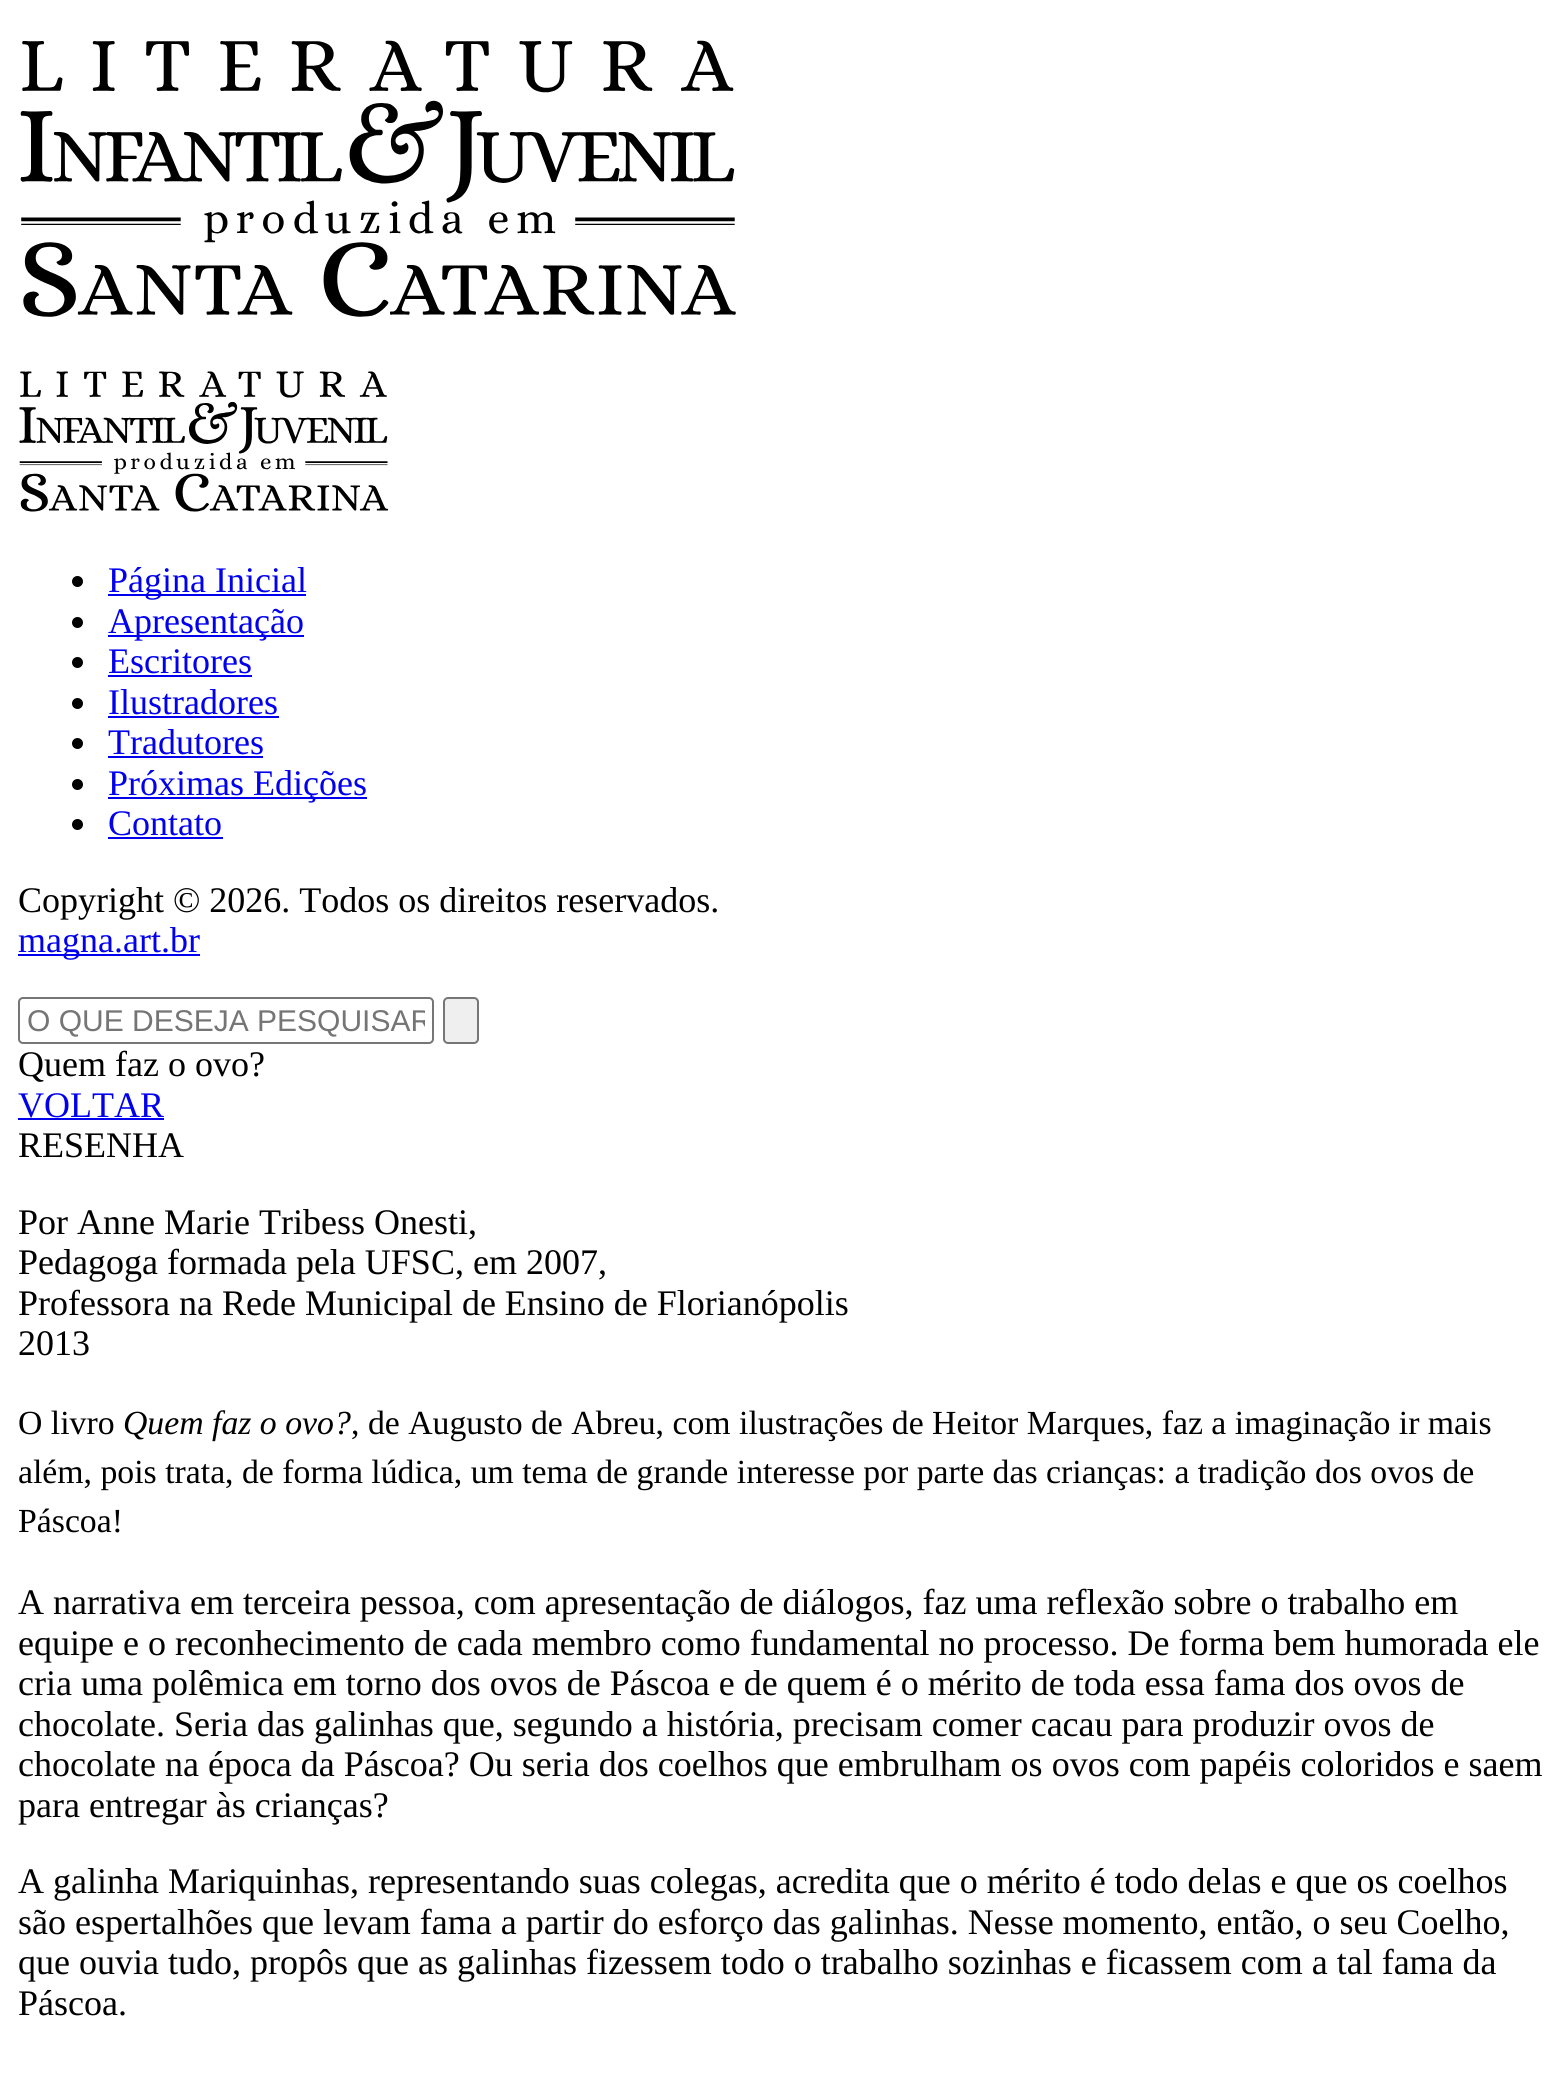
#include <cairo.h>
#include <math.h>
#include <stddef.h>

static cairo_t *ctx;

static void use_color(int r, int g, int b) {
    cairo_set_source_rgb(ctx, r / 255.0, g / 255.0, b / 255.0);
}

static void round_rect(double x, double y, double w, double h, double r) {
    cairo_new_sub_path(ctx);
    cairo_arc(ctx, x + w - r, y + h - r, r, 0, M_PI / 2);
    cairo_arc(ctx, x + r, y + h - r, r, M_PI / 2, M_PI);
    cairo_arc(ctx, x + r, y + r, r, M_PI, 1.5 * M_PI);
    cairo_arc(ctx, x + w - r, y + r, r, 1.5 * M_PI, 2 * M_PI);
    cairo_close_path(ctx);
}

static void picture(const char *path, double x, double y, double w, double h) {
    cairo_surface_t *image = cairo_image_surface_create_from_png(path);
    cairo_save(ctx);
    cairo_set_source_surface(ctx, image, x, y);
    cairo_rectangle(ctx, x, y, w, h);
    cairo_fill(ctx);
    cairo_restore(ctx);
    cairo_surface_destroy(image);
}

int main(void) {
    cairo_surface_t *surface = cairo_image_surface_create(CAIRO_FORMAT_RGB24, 1564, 2081);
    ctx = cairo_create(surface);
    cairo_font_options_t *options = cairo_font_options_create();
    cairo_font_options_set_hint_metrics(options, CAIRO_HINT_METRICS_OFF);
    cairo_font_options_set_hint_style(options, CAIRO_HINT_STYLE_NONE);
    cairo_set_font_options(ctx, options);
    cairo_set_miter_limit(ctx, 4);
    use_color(255, 255, 255);
    cairo_paint(ctx);
    picture("img1.png", 20, 40, 716, 277);
    picture("img2.png", 19, 371, 370, 141);
    use_color(0, 0, 0);
    cairo_arc(ctx, 77.5, 581.5, 5.5, 0, 2 * M_PI);
    cairo_fill(ctx);
    use_color(0, 0, 238);
    cairo_rectangle(ctx, 108, 594, 198, 2);
    cairo_fill(ctx);
    cairo_select_font_face(ctx, "Liberation Serif", CAIRO_FONT_SLANT_NORMAL, CAIRO_FONT_WEIGHT_NORMAL);
    cairo_set_font_size(ctx, 36);
    cairo_move_to(ctx, 108, 592);
    cairo_show_text(ctx, "Página Inicial");
    use_color(0, 0, 0);
    cairo_new_path(ctx);
    cairo_arc(ctx, 77.5, 622.5, 5.5, 0, 2 * M_PI);
    cairo_fill(ctx);
    use_color(0, 0, 238);
    cairo_rectangle(ctx, 108, 635, 196, 2);
    cairo_fill(ctx);
    cairo_move_to(ctx, 108, 633);
    cairo_show_text(ctx, "Apresentação");
    use_color(0, 0, 0);
    cairo_new_path(ctx);
    cairo_arc(ctx, 77.5, 662.5, 5.5, 0, 2 * M_PI);
    cairo_fill(ctx);
    use_color(0, 0, 238);
    cairo_move_to(ctx, 108, 673);
    cairo_show_text(ctx, "Escritores");
    cairo_rectangle(ctx, 108, 675, 144, 2);
    cairo_fill(ctx);
    use_color(0, 0, 0);
    cairo_arc(ctx, 77.5, 703.5, 5.5, 0, 2 * M_PI);
    cairo_fill(ctx);
    use_color(0, 0, 238);
    cairo_move_to(ctx, 108, 714);
    cairo_show_text(ctx, "Ilustradores");
    cairo_rectangle(ctx, 108, 716, 171, 2);
    cairo_fill(ctx);
    use_color(0, 0, 0);
    cairo_arc(ctx, 77.5, 743.5, 5.5, 0, 2 * M_PI);
    cairo_fill(ctx);
    use_color(0, 0, 238);
    cairo_move_to(ctx, 108, 754);
    cairo_show_text(ctx, "Tradutores");
    cairo_rectangle(ctx, 108, 756, 155, 2);
    cairo_fill(ctx);
    use_color(0, 0, 0);
    cairo_arc(ctx, 77.5, 784.5, 5.5, 0, 2 * M_PI);
    cairo_fill(ctx);
    use_color(0, 0, 238);
    cairo_rectangle(ctx, 108, 797, 259, 2);
    cairo_fill(ctx);
    cairo_move_to(ctx, 108, 795);
    cairo_show_text(ctx, "Próximas Edições");
    use_color(0, 0, 0);
    cairo_new_path(ctx);
    cairo_arc(ctx, 77.5, 824.5, 5.5, 0, 2 * M_PI);
    cairo_fill(ctx);
    use_color(0, 0, 238);
    cairo_move_to(ctx, 108, 835);
    cairo_show_text(ctx, "Contato");
    cairo_rectangle(ctx, 108, 837, 115, 2);
    cairo_fill(ctx);
    use_color(0, 0, 0);
    cairo_move_to(ctx, 18, 912);
    cairo_show_text(ctx, "Copyright © 2026. Todos os direitos reservados.");
    use_color(0, 0, 238);
    cairo_rectangle(ctx, 18, 954, 182, 2);
    cairo_fill(ctx);
    cairo_move_to(ctx, 18, 952);
    cairo_show_text(ctx, "magna.art.br");
    round_rect(19, 998, 414, 45, 4);
    use_color(118, 118, 118);
    cairo_stroke(ctx);
    cairo_save(ctx);
    cairo_rectangle(ctx, 27, 1004, 398, 33);
    cairo_clip(ctx);
    cairo_select_font_face(ctx, "Liberation Sans", CAIRO_FONT_SLANT_NORMAL, CAIRO_FONT_WEIGHT_NORMAL);
    cairo_set_font_size(ctx, 30);
    use_color(117, 117, 117);
    cairo_move_to(ctx, 27, 1031);
    cairo_show_text(ctx, "O QUE DESEJA PESQUISAR");
    cairo_restore(ctx);
    use_color(239, 239, 239);
    round_rect(444, 998, 34, 45, 4);
    cairo_fill_preserve(ctx);
    use_color(118, 118, 118);
    cairo_stroke(ctx);
    use_color(0, 0, 0);
    cairo_move_to(ctx, 18, 1076);
    cairo_show_text(ctx, "Quem faz o ovo?");
    use_color(0, 0, 238);
    cairo_move_to(ctx, 18, 1117);
    cairo_show_text(ctx, "VOLTAR");
    cairo_rectangle(ctx, 18, 1118, 146, 2);
    cairo_fill(ctx);
    use_color(0, 0, 0);
    cairo_move_to(ctx, 18, 1157);
    cairo_show_text(ctx, "RESENHA");
    cairo_move_to(ctx, 18, 1234);
    cairo_show_text(ctx, "Por Anne Marie Tribess Onesti,");
    cairo_move_to(ctx, 18, 1274);
    cairo_show_text(ctx, "Pedagoga formada pela UFSC, em 2007,");
    cairo_move_to(ctx, 18, 1315);
    cairo_show_text(ctx, "Professora na Rede Municipal de Ensino de Florianópolis");
    cairo_move_to(ctx, 18, 1355);
    cairo_show_text(ctx, "2013");
    cairo_set_font_size(ctx, 33.75);
    cairo_move_to(ctx, 18, 1434);
    cairo_show_text(ctx, "O livro");
    cairo_select_font_face(ctx, "Liberation Serif", CAIRO_FONT_SLANT_ITALIC, CAIRO_FONT_WEIGHT_NORMAL);
    cairo_move_to(ctx, 123, 1434);
    cairo_show_text(ctx, "Quem faz o ovo?");
    cairo_select_font_face(ctx, "Liberation Serif", CAIRO_FONT_SLANT_NORMAL, CAIRO_FONT_WEIGHT_NORMAL);
    cairo_move_to(ctx, 351, 1434);
    cairo_show_text(ctx, ", de Augusto de Abreu, com ilustrações de Heitor Marques, faz a imaginação ir mais");
    cairo_move_to(ctx, 18, 1483);
    cairo_show_text(ctx, "além, pois trata, de forma lúdica, um tema de grande interesse por parte das crianças: a tradição dos ovos de");
    cairo_move_to(ctx, 18, 1532);
    cairo_show_text(ctx, "Páscoa!");
    cairo_set_font_size(ctx, 36);
    cairo_move_to(ctx, 18, 1614);
    cairo_show_text(ctx, "A narrativa em terceira pessoa, com apresentação de diálogos, faz uma reflexão sobre o trabalho em");
    cairo_move_to(ctx, 18, 1655);
    cairo_show_text(ctx, "equipe e o reconhecimento de cada membro como fundamental no processo. De forma bem humorada ele");
    cairo_move_to(ctx, 18, 1695);
    cairo_show_text(ctx, "cria uma polêmica em torno dos ovos de Páscoa e de quem é o mérito de toda essa fama dos ovos de");
    cairo_move_to(ctx, 18, 1736);
    cairo_show_text(ctx, "chocolate. Seria das galinhas que, segundo a história, precisam comer cacau para produzir ovos de");
    cairo_move_to(ctx, 18, 1776);
    cairo_show_text(ctx, "chocolate na época da Páscoa? Ou seria dos coelhos que embrulham os ovos com papéis coloridos e saem");
    cairo_move_to(ctx, 18, 1817);
    cairo_show_text(ctx, "para entregar às crianças?");
    cairo_move_to(ctx, 18, 1893);
    cairo_show_text(ctx, "A galinha Mariquinhas, representando suas colegas, acredita que o mérito é todo delas e que os coelhos");
    cairo_move_to(ctx, 18, 1934);
    cairo_show_text(ctx, "são espertalhões que levam fama a partir do esforço das galinhas. Nesse momento, então, o seu Coelho,");
    cairo_move_to(ctx, 18, 1974);
    cairo_show_text(ctx, "que ouvia tudo, propôs que as galinhas fizessem todo o trabalho sozinhas e ficassem com a tal fama da");
    cairo_move_to(ctx, 18, 2015);
    cairo_show_text(ctx, "Páscoa.");
    cairo_surface_write_to_png(surface, "result.png");
    cairo_font_options_destroy(options);
    cairo_destroy(ctx);
    cairo_surface_destroy(surface);
    return 0;
}
